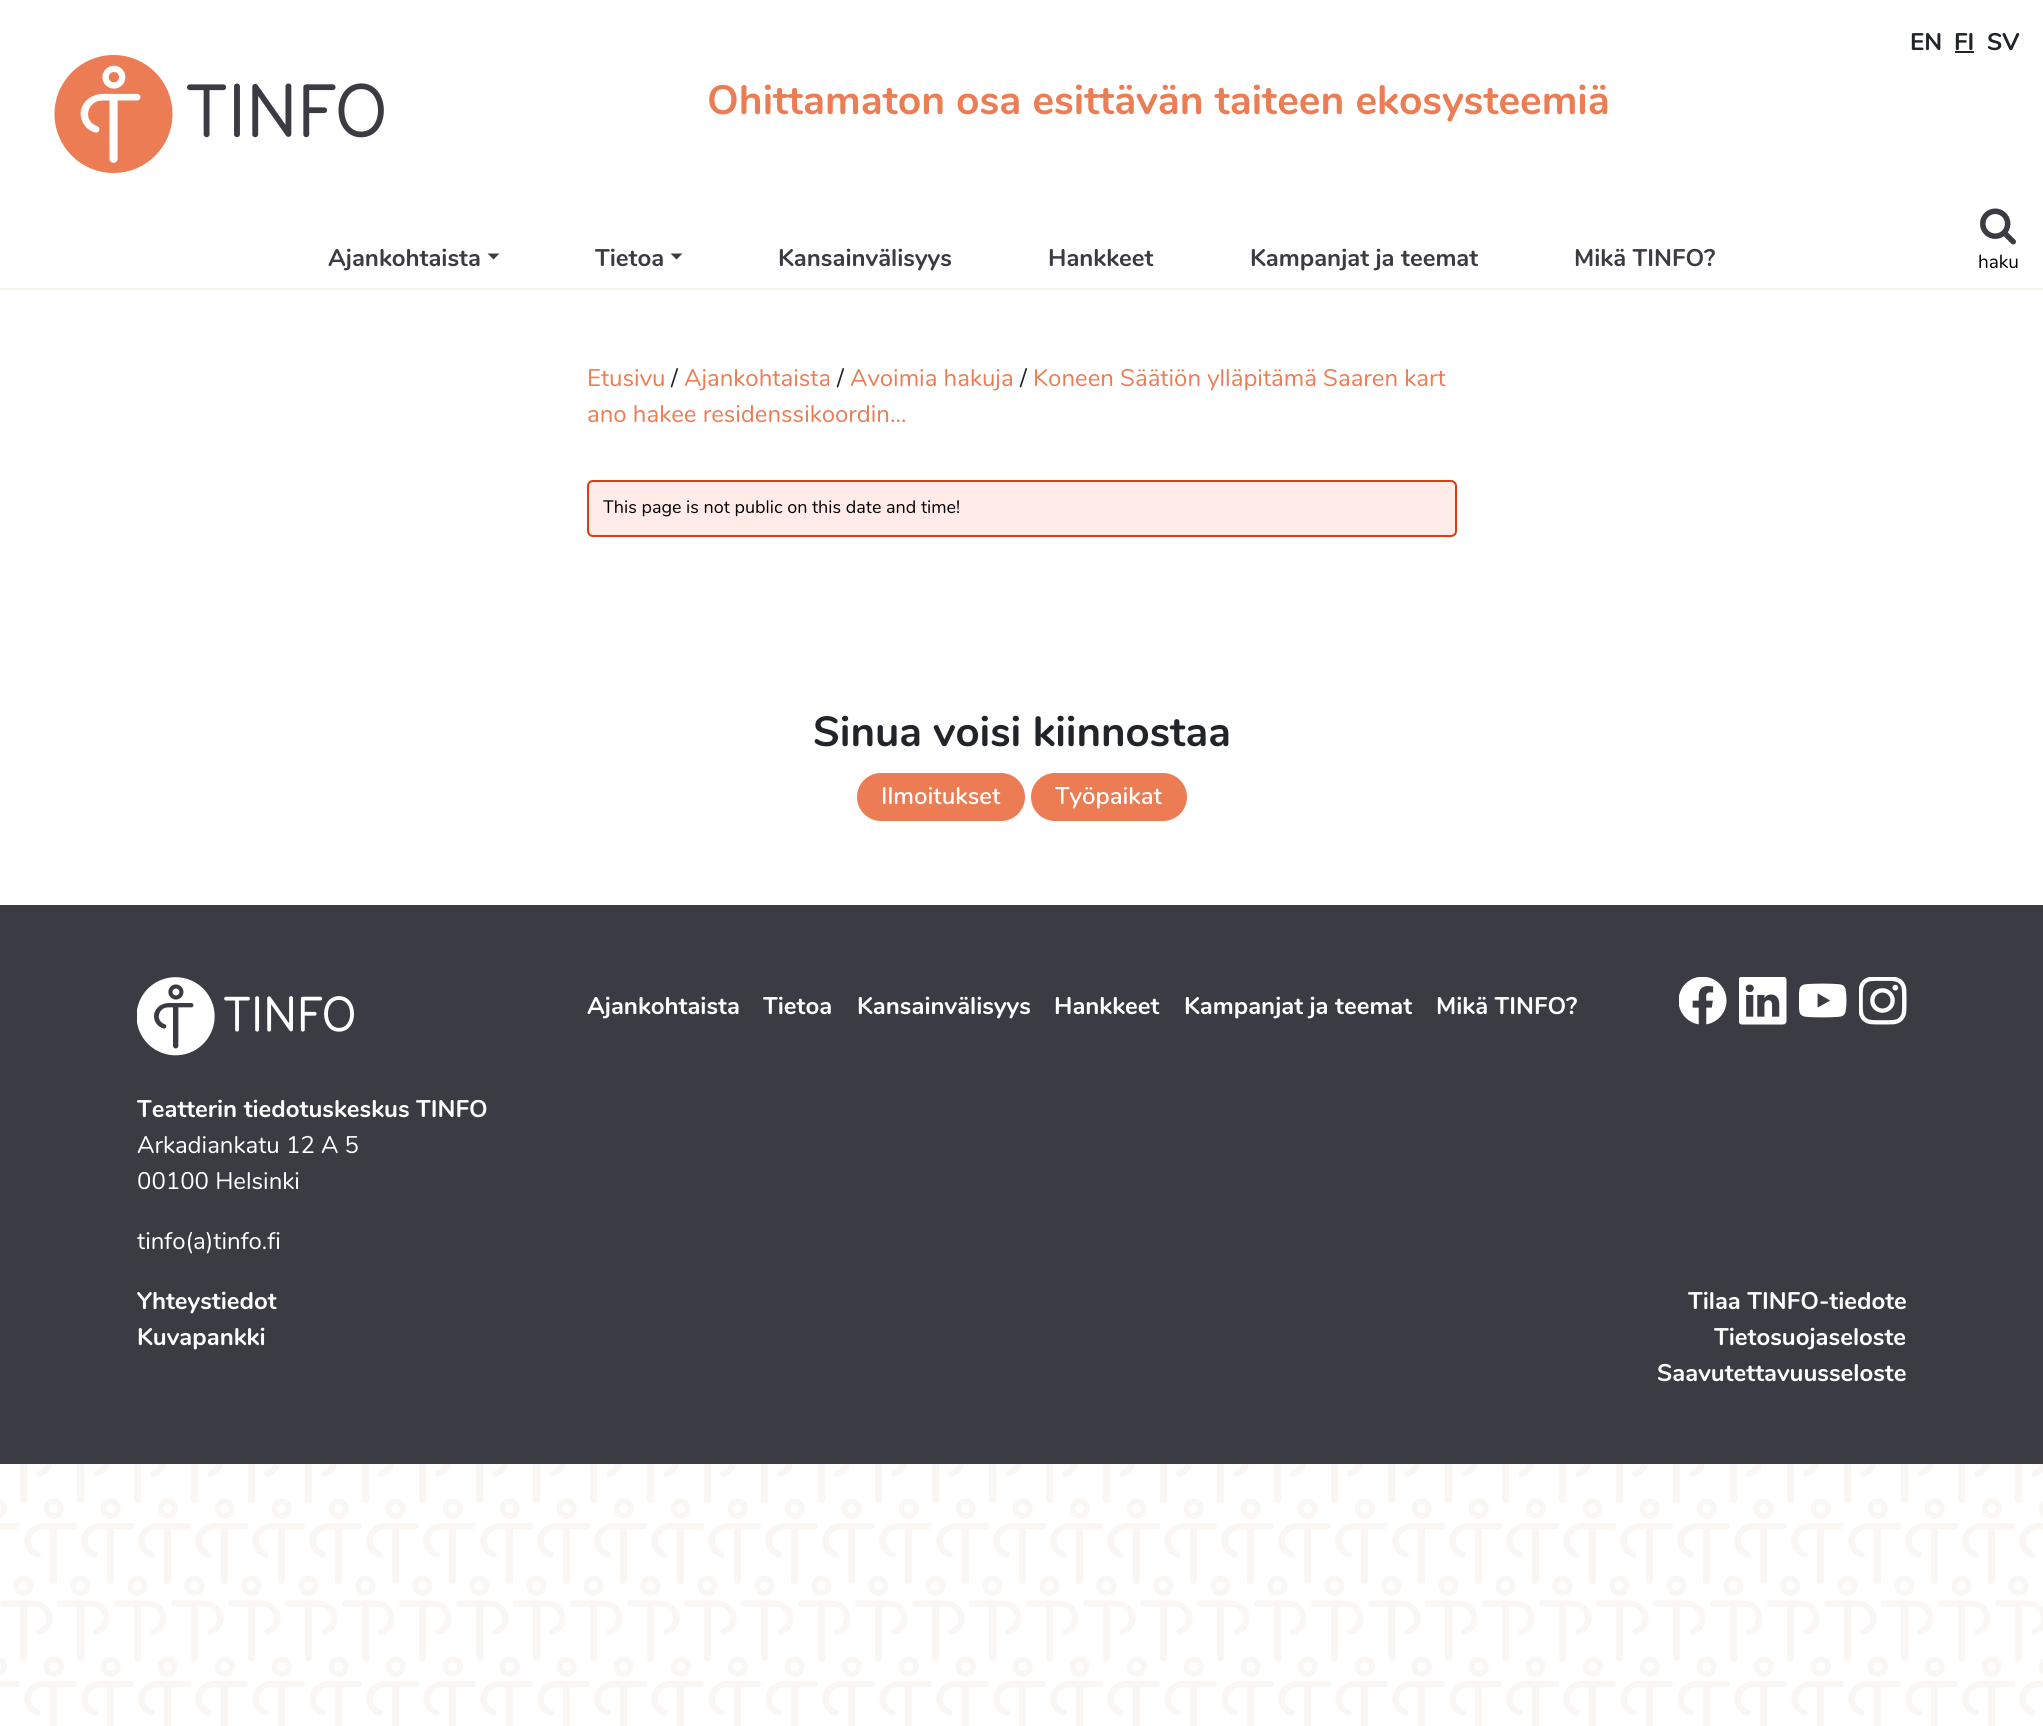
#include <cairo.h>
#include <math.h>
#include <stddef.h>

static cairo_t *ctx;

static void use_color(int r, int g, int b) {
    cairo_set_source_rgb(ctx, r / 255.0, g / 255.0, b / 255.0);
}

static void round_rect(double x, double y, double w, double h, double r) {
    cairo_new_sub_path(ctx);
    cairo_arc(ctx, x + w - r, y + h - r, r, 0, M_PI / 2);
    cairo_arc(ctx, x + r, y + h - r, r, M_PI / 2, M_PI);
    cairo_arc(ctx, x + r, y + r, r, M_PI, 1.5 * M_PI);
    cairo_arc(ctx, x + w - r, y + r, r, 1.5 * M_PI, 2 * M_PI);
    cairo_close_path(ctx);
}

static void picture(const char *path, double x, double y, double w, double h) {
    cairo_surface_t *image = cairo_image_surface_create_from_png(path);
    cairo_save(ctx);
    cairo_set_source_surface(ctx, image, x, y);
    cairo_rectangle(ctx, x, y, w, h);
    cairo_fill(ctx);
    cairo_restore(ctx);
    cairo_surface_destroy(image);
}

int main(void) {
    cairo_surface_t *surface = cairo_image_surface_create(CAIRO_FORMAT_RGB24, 2043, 1726);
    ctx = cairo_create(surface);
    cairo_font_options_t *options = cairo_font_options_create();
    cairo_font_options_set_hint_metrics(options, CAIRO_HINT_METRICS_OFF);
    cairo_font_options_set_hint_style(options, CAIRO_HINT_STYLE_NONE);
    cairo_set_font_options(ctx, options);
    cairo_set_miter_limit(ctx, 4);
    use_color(255, 255, 255);
    cairo_paint(ctx);
    picture("img1.png", 0, 1464, 2043, 262);
    use_color(246, 244, 234);
    cairo_rectangle(ctx, 0, 288, 2043, 2);
    cairo_fill(ctx);
    cairo_select_font_face(ctx, "Nunito", CAIRO_FONT_SLANT_NORMAL, CAIRO_FONT_WEIGHT_BOLD);
    cairo_set_font_size(ctx, 24);
    use_color(33, 37, 41);
    cairo_move_to(ctx, 1910, 50);
    cairo_show_text(ctx, "EN");
    cairo_move_to(ctx, 1954, 50);
    cairo_show_text(ctx, "FI");
    cairo_rectangle(ctx, 1955, 51, 19, 2);
    cairo_fill(ctx);
    cairo_move_to(ctx, 1987, 50);
    cairo_show_text(ctx, "SV");
    picture("img2.png", 54, 55, 330, 118);
    cairo_set_font_size(ctx, 40.8);
    use_color(236, 124, 84);
    cairo_move_to(ctx, 707, 114);
    cairo_show_text(ctx, "Ohittamaton osa esittävän taiteen ekosysteemiä");
    picture("img3.png", 1980, 208, 36, 37);
    cairo_select_font_face(ctx, "Nunito", CAIRO_FONT_SLANT_NORMAL, CAIRO_FONT_WEIGHT_NORMAL);
    cairo_set_font_size(ctx, 19);
    use_color(0, 0, 0);
    cairo_move_to(ctx, 1978, 268);
    cairo_show_text(ctx, "haku");
    cairo_select_font_face(ctx, "Nunito", CAIRO_FONT_SLANT_NORMAL, CAIRO_FONT_WEIGHT_BOLD);
    cairo_set_font_size(ctx, 24);
    use_color(59, 60, 67);
    cairo_move_to(ctx, 328, 266);
    cairo_show_text(ctx, "Ajankohtaista");
    cairo_new_path(ctx);
    cairo_move_to(ctx, 487.5, 253.5);
    cairo_line_to(ctx, 499.5, 253.5);
    cairo_line_to(ctx, 493.5, 259.5);
    cairo_close_path(ctx);
    cairo_fill(ctx);
    cairo_move_to(ctx, 595, 266);
    cairo_show_text(ctx, "Tietoa");
    cairo_new_path(ctx);
    cairo_move_to(ctx, 670.5, 253.5);
    cairo_line_to(ctx, 682.5, 253.5);
    cairo_line_to(ctx, 676.5, 259.5);
    cairo_close_path(ctx);
    cairo_fill(ctx);
    cairo_move_to(ctx, 778, 266);
    cairo_show_text(ctx, "Kansainvälisyys");
    cairo_move_to(ctx, 1048, 266);
    cairo_show_text(ctx, "Hankkeet");
    cairo_move_to(ctx, 1250, 266);
    cairo_show_text(ctx, "Kampanjat ja teemat");
    cairo_move_to(ctx, 1574, 266);
    cairo_show_text(ctx, "Mikä TINFO?");
    cairo_select_font_face(ctx, "Nunito", CAIRO_FONT_SLANT_NORMAL, CAIRO_FONT_WEIGHT_NORMAL);
    use_color(236, 124, 84);
    cairo_move_to(ctx, 587, 386);
    cairo_show_text(ctx, "Etusivu");
    use_color(33, 37, 41);
    cairo_move_to(ctx, 671, 386);
    cairo_show_text(ctx, "/");
    use_color(236, 124, 84);
    cairo_move_to(ctx, 684, 386);
    cairo_show_text(ctx, "Ajankohtaista");
    use_color(33, 37, 41);
    cairo_move_to(ctx, 837, 386);
    cairo_show_text(ctx, "/");
    use_color(236, 124, 84);
    cairo_move_to(ctx, 850, 386);
    cairo_show_text(ctx, "Avoimia hakuja");
    use_color(33, 37, 41);
    cairo_move_to(ctx, 1020, 386);
    cairo_show_text(ctx, "/");
    use_color(236, 124, 84);
    cairo_move_to(ctx, 1033, 386);
    cairo_show_text(ctx, "Koneen Säätiön ylläpitämä Saaren kart");
    cairo_move_to(ctx, 587, 422);
    cairo_show_text(ctx, "ano hakee residenssikoordin...");
    use_color(255, 235, 232);
    round_rect(588, 481, 868, 55, 5);
    cairo_fill_preserve(ctx);
    use_color(221, 60, 16);
    cairo_stroke(ctx);
    cairo_set_font_size(ctx, 18);
    use_color(0, 0, 0);
    cairo_move_to(ctx, 603, 513);
    cairo_show_text(ctx, "This page is not public on this date and time!");
    cairo_select_font_face(ctx, "Nunito", CAIRO_FONT_SLANT_NORMAL, CAIRO_FONT_WEIGHT_BOLD);
    cairo_set_font_size(ctx, 42);
    use_color(33, 37, 41);
    cairo_move_to(ctx, 813, 746);
    cairo_show_text(ctx, "Sinua voisi kiinnostaa");
    use_color(236, 124, 84);
    round_rect(857, 773, 168, 48, 24);
    cairo_fill(ctx);
    cairo_select_font_face(ctx, "Nunito SemiBold", CAIRO_FONT_SLANT_NORMAL, CAIRO_FONT_WEIGHT_NORMAL);
    cairo_set_font_size(ctx, 24);
    use_color(255, 255, 255);
    cairo_move_to(ctx, 881, 804);
    cairo_show_text(ctx, "Ilmoitukset");
    use_color(236, 124, 84);
    round_rect(1031, 773, 156, 48, 24);
    cairo_fill(ctx);
    use_color(255, 255, 255);
    cairo_move_to(ctx, 1055, 804);
    cairo_show_text(ctx, "Työpaikat");
    use_color(59, 60, 67);
    cairo_rectangle(ctx, 0, 905, 2043, 559);
    cairo_fill(ctx);
    cairo_select_font_face(ctx, "Nunito", CAIRO_FONT_SLANT_NORMAL, CAIRO_FONT_WEIGHT_BOLD);
    use_color(255, 255, 255);
    cairo_move_to(ctx, 587, 1014);
    cairo_show_text(ctx, "Ajankohtaista");
    cairo_move_to(ctx, 763, 1014);
    cairo_show_text(ctx, "Tietoa");
    cairo_move_to(ctx, 857, 1014);
    cairo_show_text(ctx, "Kansainvälisyys");
    cairo_move_to(ctx, 1054, 1014);
    cairo_show_text(ctx, "Hankkeet");
    cairo_move_to(ctx, 1184, 1014);
    cairo_show_text(ctx, "Kampanjat ja teemat");
    cairo_move_to(ctx, 1436, 1014);
    cairo_show_text(ctx, "Mikä TINFO?");
    picture("img4.png", 1679, 977, 48, 48);
    picture("img5.png", 1739, 977, 48, 48);
    picture("img6.png", 1799, 983, 48, 35);
    picture("img7.png", 1859, 977, 48, 48);
    picture("img8.png", 137, 977, 217, 79);
    cairo_move_to(ctx, 137, 1117);
    cairo_show_text(ctx, "Teatterin tiedotuskeskus TINFO");
    cairo_select_font_face(ctx, "Nunito", CAIRO_FONT_SLANT_NORMAL, CAIRO_FONT_WEIGHT_NORMAL);
    cairo_move_to(ctx, 137, 1153);
    cairo_show_text(ctx, "Arkadiankatu 12 A 5");
    cairo_move_to(ctx, 137, 1189);
    cairo_show_text(ctx, "00100 Helsinki");
    cairo_move_to(ctx, 137, 1249);
    cairo_show_text(ctx, "tinfo(a)tinfo.fi");
    cairo_select_font_face(ctx, "Nunito", CAIRO_FONT_SLANT_NORMAL, CAIRO_FONT_WEIGHT_BOLD);
    cairo_move_to(ctx, 137, 1309);
    cairo_show_text(ctx, "Yhteystiedot");
    cairo_move_to(ctx, 137, 1345);
    cairo_show_text(ctx, "Kuvapankki");
    cairo_move_to(ctx, 1688, 1309);
    cairo_show_text(ctx, "Tilaa TINFO-tiedote");
    cairo_move_to(ctx, 1714, 1345);
    cairo_show_text(ctx, "Tietosuojaseloste");
    cairo_move_to(ctx, 1657, 1381);
    cairo_show_text(ctx, "Saavutettavuusseloste");
    cairo_surface_write_to_png(surface, "result.png");
    cairo_font_options_destroy(options);
    cairo_destroy(ctx);
    cairo_surface_destroy(surface);
    return 0;
}
